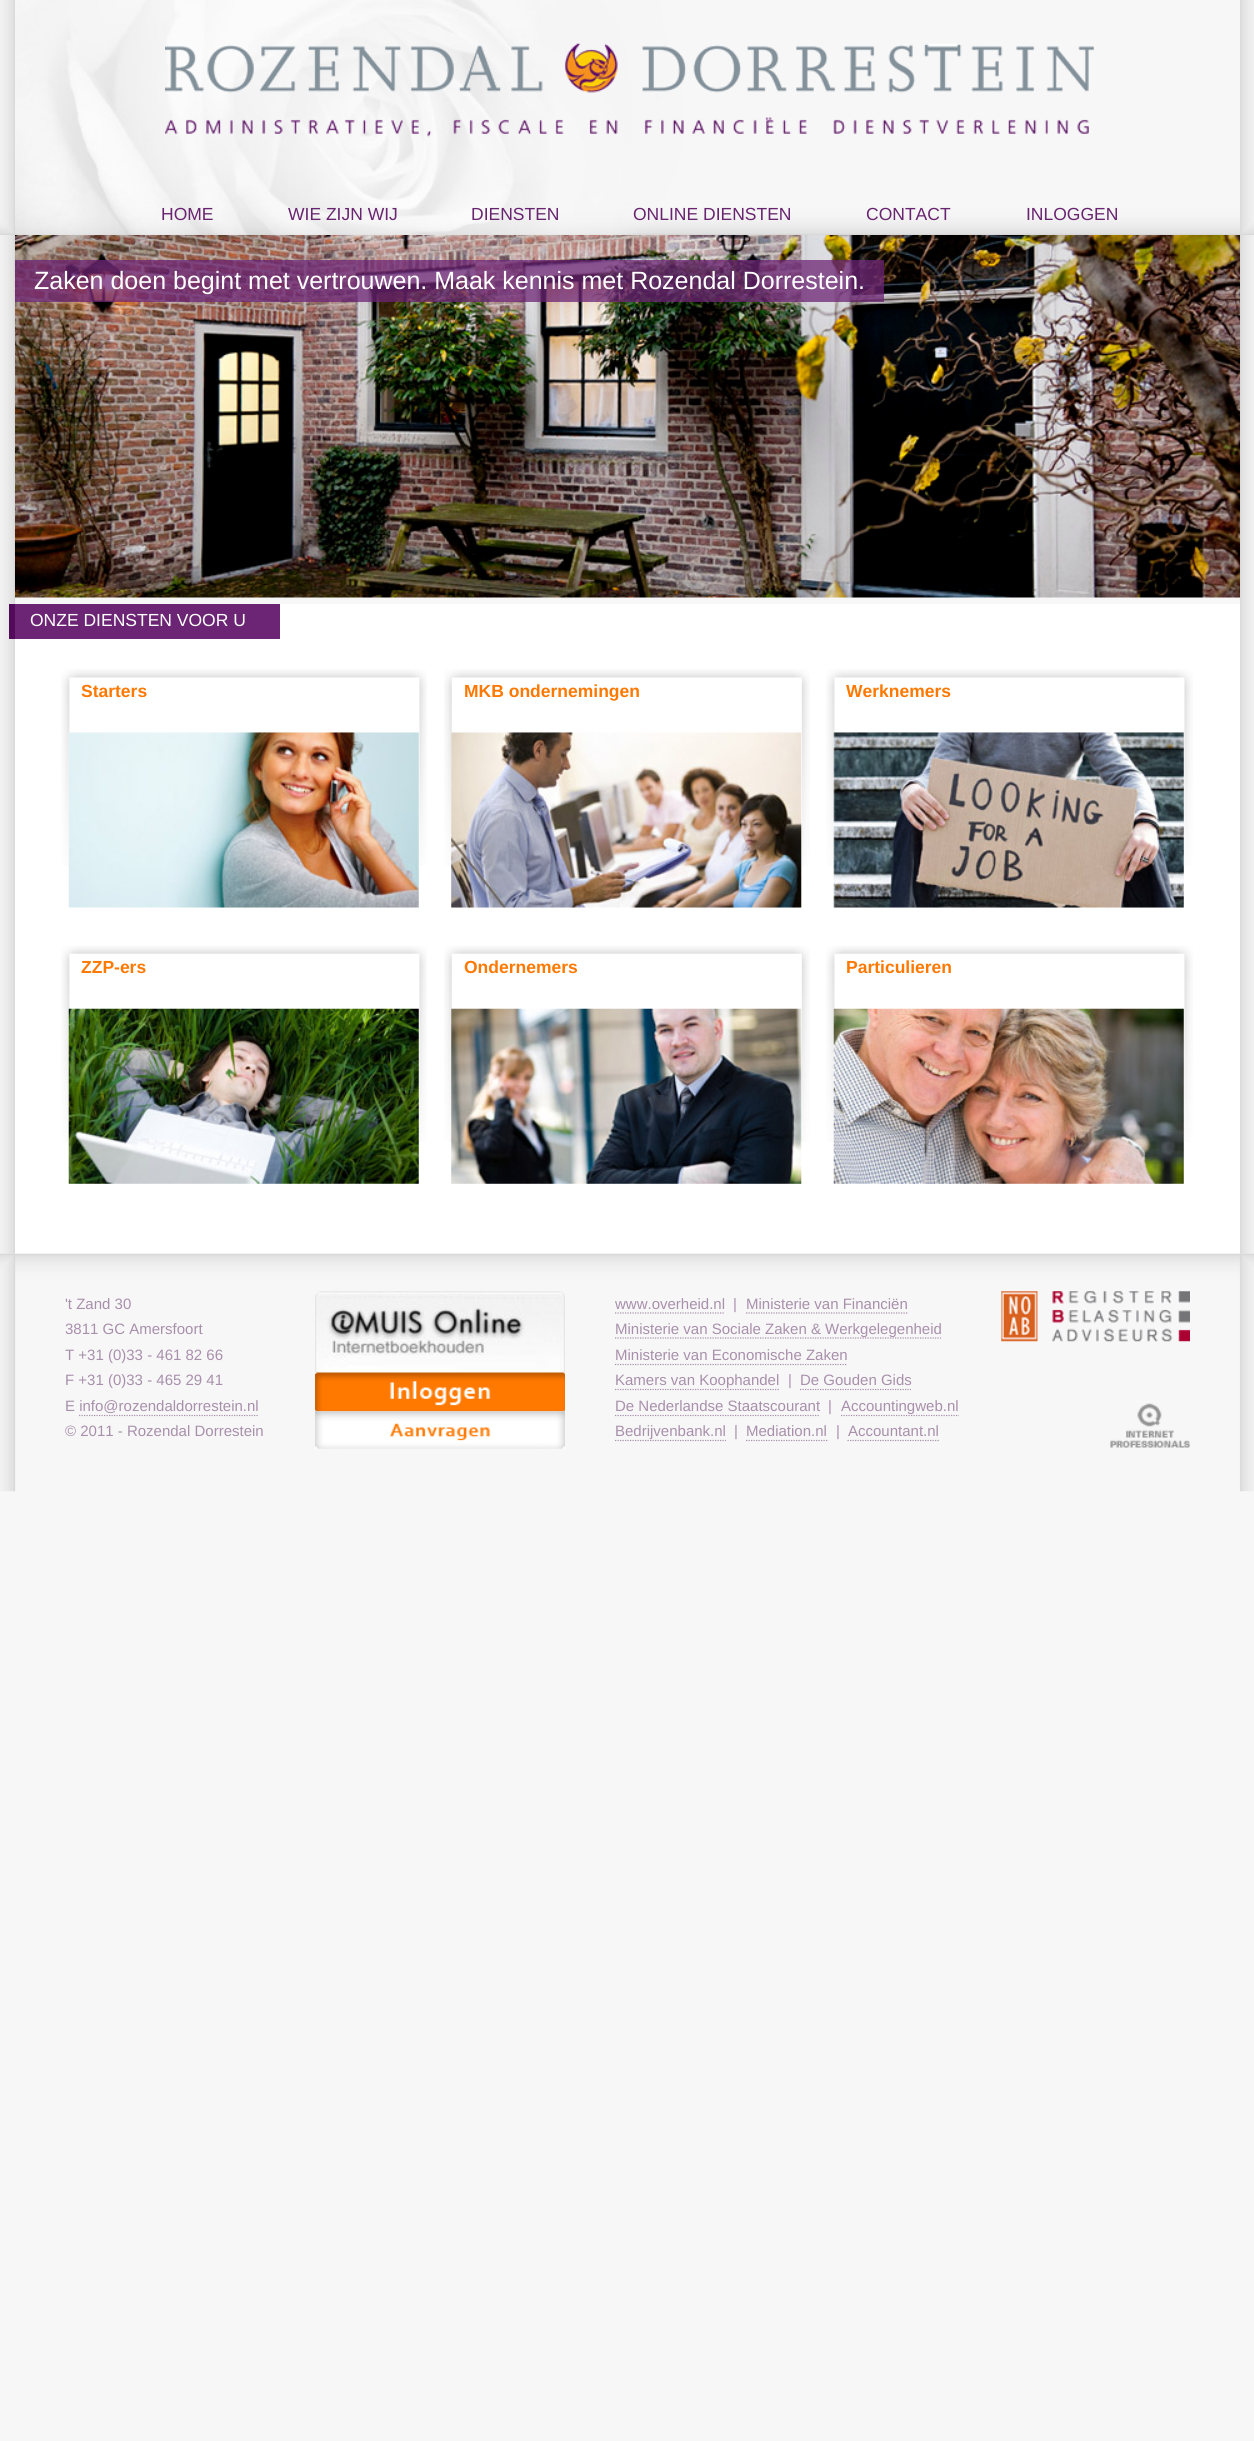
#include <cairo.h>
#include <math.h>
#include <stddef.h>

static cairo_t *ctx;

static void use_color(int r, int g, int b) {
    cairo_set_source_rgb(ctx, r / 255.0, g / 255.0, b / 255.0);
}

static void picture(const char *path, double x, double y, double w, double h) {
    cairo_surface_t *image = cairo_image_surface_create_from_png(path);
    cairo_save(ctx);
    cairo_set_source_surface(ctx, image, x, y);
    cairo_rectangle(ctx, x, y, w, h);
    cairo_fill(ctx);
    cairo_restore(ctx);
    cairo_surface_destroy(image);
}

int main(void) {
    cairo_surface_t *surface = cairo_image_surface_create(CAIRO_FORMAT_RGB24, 1254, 2441);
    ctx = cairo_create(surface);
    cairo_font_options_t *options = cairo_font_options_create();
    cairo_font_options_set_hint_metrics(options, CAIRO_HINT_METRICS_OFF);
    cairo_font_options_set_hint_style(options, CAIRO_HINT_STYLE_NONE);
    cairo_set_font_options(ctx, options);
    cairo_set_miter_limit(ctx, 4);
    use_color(247, 247, 247);
    cairo_paint(ctx);
    picture("img1.png", 0, 0, 1254, 235);
    picture("img2.png", 15, 0, 1225, 235);
    picture("img3.png", 165, 43, 929, 94);
    cairo_select_font_face(ctx, "Liberation Sans", CAIRO_FONT_SLANT_NORMAL, CAIRO_FONT_WEIGHT_NORMAL);
    cairo_set_font_size(ctx, 17.5);
    use_color(105, 36, 112);
    cairo_move_to(ctx, 161, 220);
    cairo_show_text(ctx, "HOME");
    cairo_move_to(ctx, 288, 220);
    cairo_show_text(ctx, "WIE ZIJN WIJ");
    cairo_move_to(ctx, 471, 220);
    cairo_show_text(ctx, "DIENSTEN");
    cairo_move_to(ctx, 633, 220);
    cairo_show_text(ctx, "ONLINE DIENSTEN");
    cairo_move_to(ctx, 866, 220);
    cairo_show_text(ctx, "CONTACT");
    cairo_move_to(ctx, 1026, 220);
    cairo_show_text(ctx, "INLOGGEN");
    picture("img4.png", 0, 235, 1254, 1019);
    picture("img5.png", 15, 235, 1225, 363);
    cairo_set_source_rgba(ctx, 0.424, 0.145, 0.455, 0.75);
    cairo_rectangle(ctx, 15, 260, 869, 42);
    cairo_fill(ctx);
    cairo_set_font_size(ctx, 25);
    use_color(255, 255, 255);
    cairo_move_to(ctx, 34, 289);
    cairo_show_text(ctx, "Zaken doen begint met vertrouwen. Maak kennis met Rozendal Dorrestein.");
    cairo_rectangle(ctx, 15, 604, 1225, 650);
    cairo_fill(ctx);
    use_color(108, 37, 116);
    cairo_rectangle(ctx, 15, 604, 265, 35);
    cairo_fill(ctx);
    use_color(82, 11, 90);
    cairo_rectangle(ctx, 9, 604, 6, 35);
    cairo_fill(ctx);
    cairo_set_font_size(ctx, 17.5);
    use_color(255, 255, 255);
    cairo_move_to(ctx, 30, 626);
    cairo_show_text(ctx, "ONZE DIENSTEN VOOR U");
    picture("img6.png", 61, 669, 366, 197);
    cairo_select_font_face(ctx, "Liberation Sans", CAIRO_FONT_SLANT_NORMAL, CAIRO_FONT_WEIGHT_BOLD);
    use_color(255, 120, 0);
    cairo_move_to(ctx, 81, 697);
    cairo_show_text(ctx, "Starters");
    picture("img7.png", 68, 732, 351, 176);
    picture("img8.png", 68, 732, 351, 176);
    picture("img9.png", 444, 669, 366, 197);
    cairo_move_to(ctx, 464, 697);
    cairo_show_text(ctx, "MKB ondernemingen");
    picture("img10.png", 451, 732, 351, 176);
    picture("img11.png", 451, 732, 351, 176);
    picture("img12.png", 826, 669, 367, 197);
    cairo_move_to(ctx, 846, 697);
    cairo_show_text(ctx, "Werknemers");
    picture("img13.png", 833, 732, 351, 176);
    picture("img14.png", 833, 732, 351, 176);
    picture("img15.png", 61, 946, 366, 196);
    cairo_move_to(ctx, 81, 973);
    cairo_show_text(ctx, "ZZP-ers");
    picture("img16.png", 68, 1008, 351, 176);
    picture("img17.png", 68, 1008, 351, 176);
    picture("img18.png", 444, 946, 366, 196);
    cairo_move_to(ctx, 464, 973);
    cairo_show_text(ctx, "Ondernemers");
    picture("img19.png", 451, 1008, 351, 176);
    picture("img20.png", 451, 1008, 351, 176);
    picture("img21.png", 826, 946, 367, 196);
    cairo_move_to(ctx, 846, 973);
    cairo_show_text(ctx, "Particulieren");
    picture("img22.png", 833, 1008, 351, 176);
    picture("img23.png", 833, 1008, 351, 176);
    picture("img24.png", 0, 1253, 1254, 239);
    cairo_select_font_face(ctx, "Liberation Sans", CAIRO_FONT_SLANT_NORMAL, CAIRO_FONT_WEIGHT_NORMAL);
    cairo_set_font_size(ctx, 15);
    use_color(168, 143, 171);
    cairo_move_to(ctx, 65, 1309);
    cairo_show_text(ctx, "'t Zand 30");
    cairo_move_to(ctx, 65, 1334);
    cairo_show_text(ctx, "3811 GC Amersfoort");
    cairo_move_to(ctx, 65, 1360);
    cairo_show_text(ctx, "T +31 (0)33 - 461 82 66");
    cairo_move_to(ctx, 65, 1385);
    cairo_show_text(ctx, "F +31 (0)33 - 465 29 41");
    cairo_move_to(ctx, 65, 1411);
    cairo_show_text(ctx, "E info@rozendaldorrestein.nl");
    cairo_new_path(ctx);
    cairo_move_to(ctx, 79, 1415.5);
    cairo_line_to(ctx, 259, 1415.5);
    cairo_set_line_width(ctx, 1.2);
    cairo_set_dash(ctx, (double[]){1.25, 1.25}, 2, 0);
    cairo_stroke(ctx);
    cairo_move_to(ctx, 65, 1436);
    cairo_show_text(ctx, "© 2011 - Rozendal Dorrestein");
    picture("img25.png", 315, 1291, 250, 82);
    picture("img26.png", 315, 1372, 250, 40);
    picture("img27.png", 315, 1411, 250, 38);
    cairo_move_to(ctx, 615, 1309);
    cairo_show_text(ctx, "www.overheid.nl");
    cairo_new_path(ctx);
    cairo_move_to(ctx, 615, 1313);
    cairo_line_to(ctx, 725, 1313);
    cairo_stroke(ctx);
    cairo_move_to(ctx, 733, 1309);
    cairo_show_text(ctx, "|");
    cairo_move_to(ctx, 746, 1309);
    cairo_show_text(ctx, "Ministerie van Financiën");
    cairo_new_path(ctx);
    cairo_move_to(ctx, 746, 1313);
    cairo_line_to(ctx, 907.5, 1313);
    cairo_stroke(ctx);
    cairo_new_path(ctx);
    cairo_move_to(ctx, 615, 1338);
    cairo_line_to(ctx, 941, 1338);
    cairo_stroke(ctx);
    cairo_move_to(ctx, 615, 1334);
    cairo_show_text(ctx, "Ministerie van Sociale Zaken & Werkgelegenheid");
    cairo_move_to(ctx, 615, 1360);
    cairo_show_text(ctx, "Ministerie van Economische Zaken");
    cairo_new_path(ctx);
    cairo_move_to(ctx, 615, 1364.5);
    cairo_line_to(ctx, 847.5, 1364.5);
    cairo_stroke(ctx);
    cairo_new_path(ctx);
    cairo_move_to(ctx, 615, 1389.5);
    cairo_line_to(ctx, 779, 1389.5);
    cairo_stroke(ctx);
    cairo_move_to(ctx, 615, 1385);
    cairo_show_text(ctx, "Kamers van Koophandel");
    cairo_move_to(ctx, 788, 1385);
    cairo_show_text(ctx, "|");
    cairo_move_to(ctx, 800, 1385);
    cairo_show_text(ctx, "De Gouden Gids");
    cairo_new_path(ctx);
    cairo_move_to(ctx, 800, 1389.5);
    cairo_line_to(ctx, 911, 1389.5);
    cairo_stroke(ctx);
    cairo_move_to(ctx, 615, 1411);
    cairo_show_text(ctx, "De Nederlandse Staatscourant");
    cairo_new_path(ctx);
    cairo_move_to(ctx, 615, 1415.5);
    cairo_line_to(ctx, 820, 1415.5);
    cairo_stroke(ctx);
    cairo_move_to(ctx, 828, 1411);
    cairo_show_text(ctx, "|");
    cairo_new_path(ctx);
    cairo_move_to(ctx, 841, 1415.5);
    cairo_line_to(ctx, 959, 1415.5);
    cairo_stroke(ctx);
    cairo_move_to(ctx, 841, 1411);
    cairo_show_text(ctx, "Accountingweb.nl");
    cairo_new_path(ctx);
    cairo_move_to(ctx, 615, 1440.5);
    cairo_line_to(ctx, 726, 1440.5);
    cairo_stroke(ctx);
    cairo_move_to(ctx, 615, 1436);
    cairo_show_text(ctx, "Bedrijvenbank.nl");
    cairo_move_to(ctx, 734, 1436);
    cairo_show_text(ctx, "|");
    cairo_move_to(ctx, 746, 1436);
    cairo_show_text(ctx, "Mediation.nl");
    cairo_new_path(ctx);
    cairo_move_to(ctx, 746, 1440.5);
    cairo_line_to(ctx, 827.5, 1440.5);
    cairo_stroke(ctx);
    cairo_move_to(ctx, 836, 1436);
    cairo_show_text(ctx, "|");
    cairo_move_to(ctx, 848, 1436);
    cairo_show_text(ctx, "Accountant.nl");
    cairo_new_path(ctx);
    cairo_move_to(ctx, 847.5, 1440.5);
    cairo_line_to(ctx, 939, 1440.5);
    cairo_stroke(ctx);
    picture("img28.png", 1001, 1291, 37, 51);
    picture("img29.png", 1052, 1291, 138, 51);
    picture("img30.png", 1110, 1403, 80, 45);
    cairo_surface_write_to_png(surface, "result.png");
    cairo_font_options_destroy(options);
    cairo_destroy(ctx);
    cairo_surface_destroy(surface);
    return 0;
}
